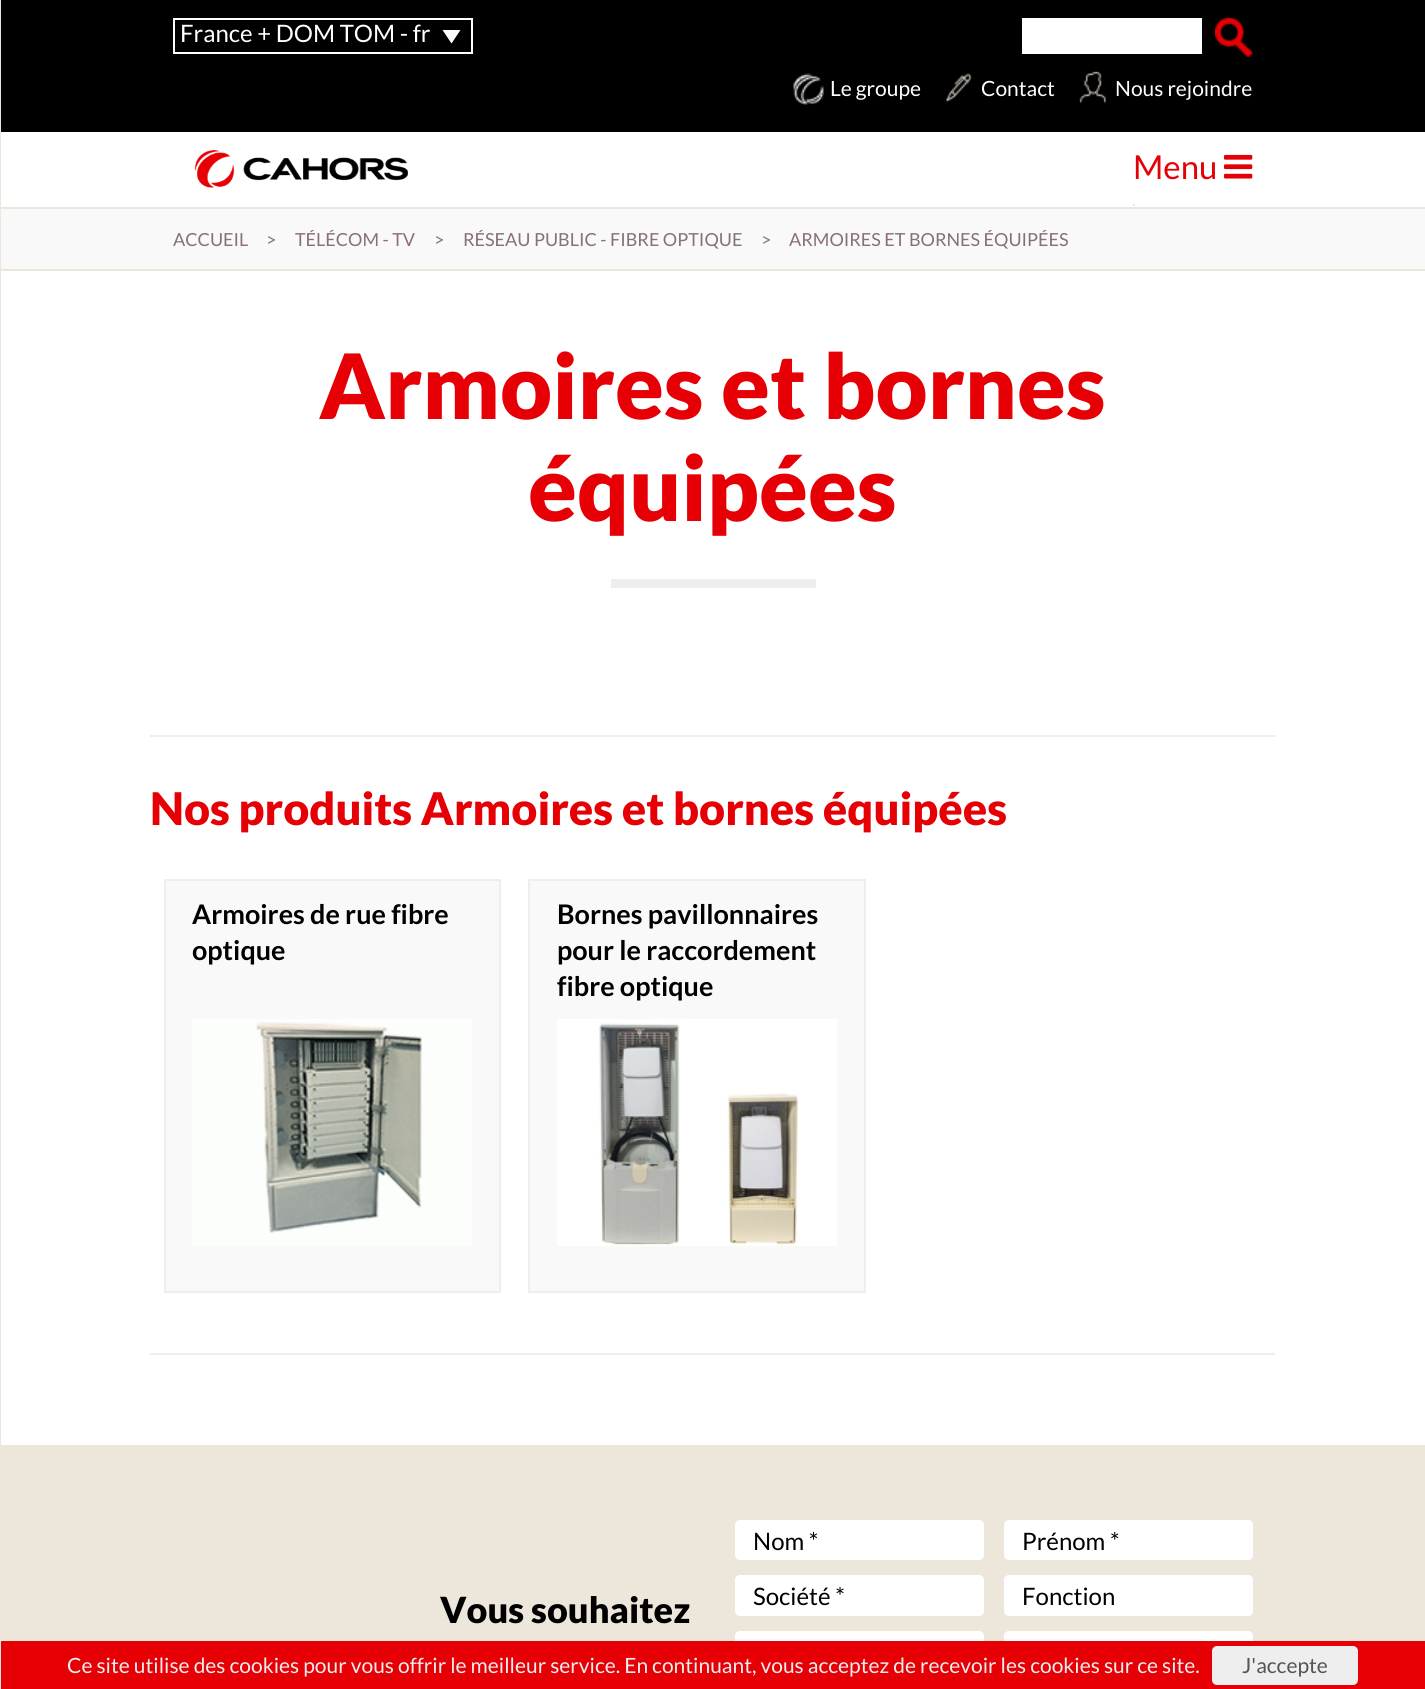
#include <cairo.h>
#include <math.h>
#include <stddef.h>

static cairo_t *ctx;

static void use_color(int r, int g, int b) {
    cairo_set_source_rgb(ctx, r / 255.0, g / 255.0, b / 255.0);
}

static void round_rect(double x, double y, double w, double h, double r) {
    cairo_new_sub_path(ctx);
    cairo_arc(ctx, x + w - r, y + h - r, r, 0, M_PI / 2);
    cairo_arc(ctx, x + r, y + h - r, r, M_PI / 2, M_PI);
    cairo_arc(ctx, x + r, y + r, r, M_PI, 1.5 * M_PI);
    cairo_arc(ctx, x + w - r, y + r, r, 1.5 * M_PI, 2 * M_PI);
    cairo_close_path(ctx);
}

static void picture(const char *path, double x, double y, double w, double h) {
    cairo_surface_t *image = cairo_image_surface_create_from_png(path);
    cairo_save(ctx);
    cairo_set_source_surface(ctx, image, x, y);
    cairo_rectangle(ctx, x, y, w, h);
    cairo_fill(ctx);
    cairo_restore(ctx);
    cairo_surface_destroy(image);
}

int main(void) {
    cairo_surface_t *surface = cairo_image_surface_create(CAIRO_FORMAT_RGB24, 1425, 1689);
    ctx = cairo_create(surface);
    cairo_font_options_t *options = cairo_font_options_create();
    cairo_font_options_set_hint_metrics(options, CAIRO_HINT_METRICS_OFF);
    cairo_font_options_set_hint_style(options, CAIRO_HINT_STYLE_NONE);
    cairo_set_font_options(ctx, options);
    cairo_set_miter_limit(ctx, 4);
    use_color(255, 255, 255);
    cairo_paint(ctx);
    use_color(237, 230, 218);
    cairo_rectangle(ctx, 0, 207, 1425, 2);
    cairo_fill(ctx);
    cairo_rectangle(ctx, 0, 269, 1425, 2);
    cairo_fill(ctx);
    cairo_rectangle(ctx, 0, 0, 1, 1689);
    cairo_fill(ctx);
    use_color(0, 0, 0);
    cairo_rectangle(ctx, 1, 0, 1424, 132);
    cairo_fill(ctx);
    cairo_rectangle(ctx, 174, 19, 298, 34);
    use_color(255, 255, 255);
    cairo_stroke(ctx);
    cairo_select_font_face(ctx, "Lato", CAIRO_FONT_SLANT_NORMAL, CAIRO_FONT_WEIGHT_NORMAL);
    cairo_set_font_size(ctx, 24);
    cairo_move_to(ctx, 180, 42);
    cairo_show_text(ctx, "France + DOM TOM - fr");
    cairo_new_path(ctx);
    cairo_move_to(ctx, 442.5, 30);
    cairo_line_to(ctx, 460.5, 30);
    cairo_line_to(ctx, 451.5, 43.5);
    cairo_close_path(ctx);
    cairo_fill(ctx);
    cairo_rectangle(ctx, 1022, 18, 180, 36);
    cairo_fill(ctx);
    picture("img1.png", 1215, 17, 38, 40);
    picture("img2.png", 793, 73, 31, 32);
    cairo_set_font_size(ctx, 21);
    cairo_move_to(ctx, 830, 96);
    cairo_show_text(ctx, "Le groupe");
    picture("img3.png", 946, 73, 27, 30);
    cairo_move_to(ctx, 981, 96);
    cairo_show_text(ctx, "Contact");
    picture("img4.png", 1079, 71, 28, 33);
    cairo_move_to(ctx, 1115, 96);
    cairo_show_text(ctx, "Nous rejoindre");
    picture("img5.png", 195, 150, 213, 38);
    cairo_set_font_size(ctx, 33);
    use_color(230, 0, 5);
    cairo_move_to(ctx, 1133, 179);
    cairo_show_text(ctx, "Menu");
    picture("img6.png", 1224, 154, 29, 25);
    use_color(237, 230, 218);
    cairo_rectangle(ctx, 1133, 204, 2, 2);
    cairo_fill(ctx);
    use_color(249, 249, 249);
    cairo_rectangle(ctx, 1, 209, 1424, 60);
    cairo_fill(ctx);
    cairo_set_font_size(ctx, 18);
    use_color(137, 111, 119);
    cairo_move_to(ctx, 173, 246);
    cairo_show_text(ctx, "ACCUEIL");
    cairo_move_to(ctx, 266, 246);
    cairo_show_text(ctx, ">");
    cairo_move_to(ctx, 295, 246);
    cairo_show_text(ctx, "TÉLÉCOM - TV");
    cairo_move_to(ctx, 434, 246);
    cairo_show_text(ctx, ">");
    cairo_move_to(ctx, 463, 246);
    cairo_show_text(ctx, "RÉSEAU PUBLIC - FIBRE OPTIQUE");
    cairo_move_to(ctx, 761, 246);
    cairo_show_text(ctx, ">");
    cairo_move_to(ctx, 789, 246);
    cairo_show_text(ctx, "ARMOIRES ET BORNES ÉQUIPÉES");
    cairo_select_font_face(ctx, "Lato Black", CAIRO_FONT_SLANT_NORMAL, CAIRO_FONT_WEIGHT_NORMAL);
    cairo_set_font_size(ctx, 90);
    use_color(230, 0, 5);
    cairo_move_to(ctx, 319, 419);
    cairo_show_text(ctx, "Armoires et bornes");
    cairo_move_to(ctx, 528, 521);
    cairo_show_text(ctx, "équipées");
    use_color(238, 238, 238);
    cairo_rectangle(ctx, 611, 579, 205, 9);
    cairo_fill(ctx);
    cairo_rectangle(ctx, 150, 735, 1125, 2);
    cairo_fill(ctx);
    cairo_rectangle(ctx, 150, 1353, 1125, 2);
    cairo_fill(ctx);
    cairo_set_font_size(ctx, 45);
    use_color(230, 0, 5);
    cairo_move_to(ctx, 150, 825);
    cairo_show_text(ctx, "Nos produits Armoires et bornes équipées");
    use_color(249, 249, 249);
    cairo_rectangle(ctx, 165, 880, 335, 412);
    cairo_fill_preserve(ctx);
    use_color(238, 238, 238);
    cairo_stroke(ctx);
    cairo_select_font_face(ctx, "Lato", CAIRO_FONT_SLANT_NORMAL, CAIRO_FONT_WEIGHT_BOLD);
    cairo_set_font_size(ctx, 27);
    use_color(0, 0, 0);
    cairo_move_to(ctx, 192, 924);
    cairo_show_text(ctx, "Armoires de rue fibre");
    cairo_move_to(ctx, 192, 960);
    cairo_show_text(ctx, "optique");
    picture("img7.png", 192, 1019, 280, 227);
    use_color(249, 249, 249);
    cairo_rectangle(ctx, 529, 880, 336, 412);
    cairo_fill_preserve(ctx);
    use_color(238, 238, 238);
    cairo_stroke(ctx);
    use_color(0, 0, 0);
    cairo_move_to(ctx, 557, 924);
    cairo_show_text(ctx, "Bornes pavillonnaires");
    cairo_move_to(ctx, 557, 960);
    cairo_show_text(ctx, "pour le raccordement");
    cairo_move_to(ctx, 557, 996);
    cairo_show_text(ctx, "fibre optique");
    picture("img8.png", 557, 1019, 280, 227);
    use_color(237, 230, 218);
    cairo_rectangle(ctx, 1, 1445, 1424, 196);
    cairo_fill(ctx);
    use_color(255, 255, 255);
    round_rect(735, 1520, 249, 40, 5);
    cairo_fill(ctx);
    cairo_select_font_face(ctx, "Lato", CAIRO_FONT_SLANT_NORMAL, CAIRO_FONT_WEIGHT_NORMAL);
    cairo_set_font_size(ctx, 24);
    use_color(0, 0, 0);
    cairo_move_to(ctx, 753, 1550);
    cairo_show_text(ctx, "Nom *");
    use_color(255, 255, 255);
    round_rect(1004, 1520, 249, 40, 5);
    cairo_fill(ctx);
    use_color(0, 0, 0);
    cairo_move_to(ctx, 1022, 1550);
    cairo_show_text(ctx, "Prénom *");
    use_color(255, 255, 255);
    round_rect(735, 1575, 249, 41, 5);
    cairo_fill(ctx);
    use_color(0, 0, 0);
    cairo_move_to(ctx, 753, 1605);
    cairo_show_text(ctx, "Société *");
    use_color(255, 255, 255);
    round_rect(1004, 1575, 249, 41, 5);
    cairo_fill(ctx);
    use_color(0, 0, 0);
    cairo_move_to(ctx, 1022, 1605);
    cairo_show_text(ctx, "Fonction");
    use_color(255, 255, 255);
    round_rect(735, 1631, 249, 40, 5);
    cairo_fill(ctx);
    round_rect(1004, 1631, 249, 40, 5);
    cairo_fill(ctx);
    cairo_select_font_face(ctx, "Lato Black", CAIRO_FONT_SLANT_NORMAL, CAIRO_FONT_WEIGHT_NORMAL);
    cairo_set_font_size(ctx, 36);
    use_color(0, 0, 0);
    cairo_move_to(ctx, 440, 1623);
    cairo_show_text(ctx, "Vous souhaitez");
    use_color(230, 0, 5);
    cairo_rectangle(ctx, 1, 1641, 1424, 48);
    cairo_fill(ctx);
    cairo_select_font_face(ctx, "Lato", CAIRO_FONT_SLANT_NORMAL, CAIRO_FONT_WEIGHT_NORMAL);
    cairo_set_font_size(ctx, 21);
    use_color(238, 238, 238);
    cairo_move_to(ctx, 67, 1673);
    cairo_show_text(ctx, "Ce site utilise des cookies pour vous offrir le meilleur service. En continuant, vous acceptez de recevoir les cookies sur ce site.");
    round_rect(1212, 1646, 146, 39, 5);
    cairo_fill(ctx);
    use_color(85, 85, 85);
    cairo_move_to(ctx, 1242, 1673);
    cairo_show_text(ctx, "J'accepte");
    cairo_surface_write_to_png(surface, "result.png");
    cairo_font_options_destroy(options);
    cairo_destroy(ctx);
    cairo_surface_destroy(surface);
    return 0;
}
